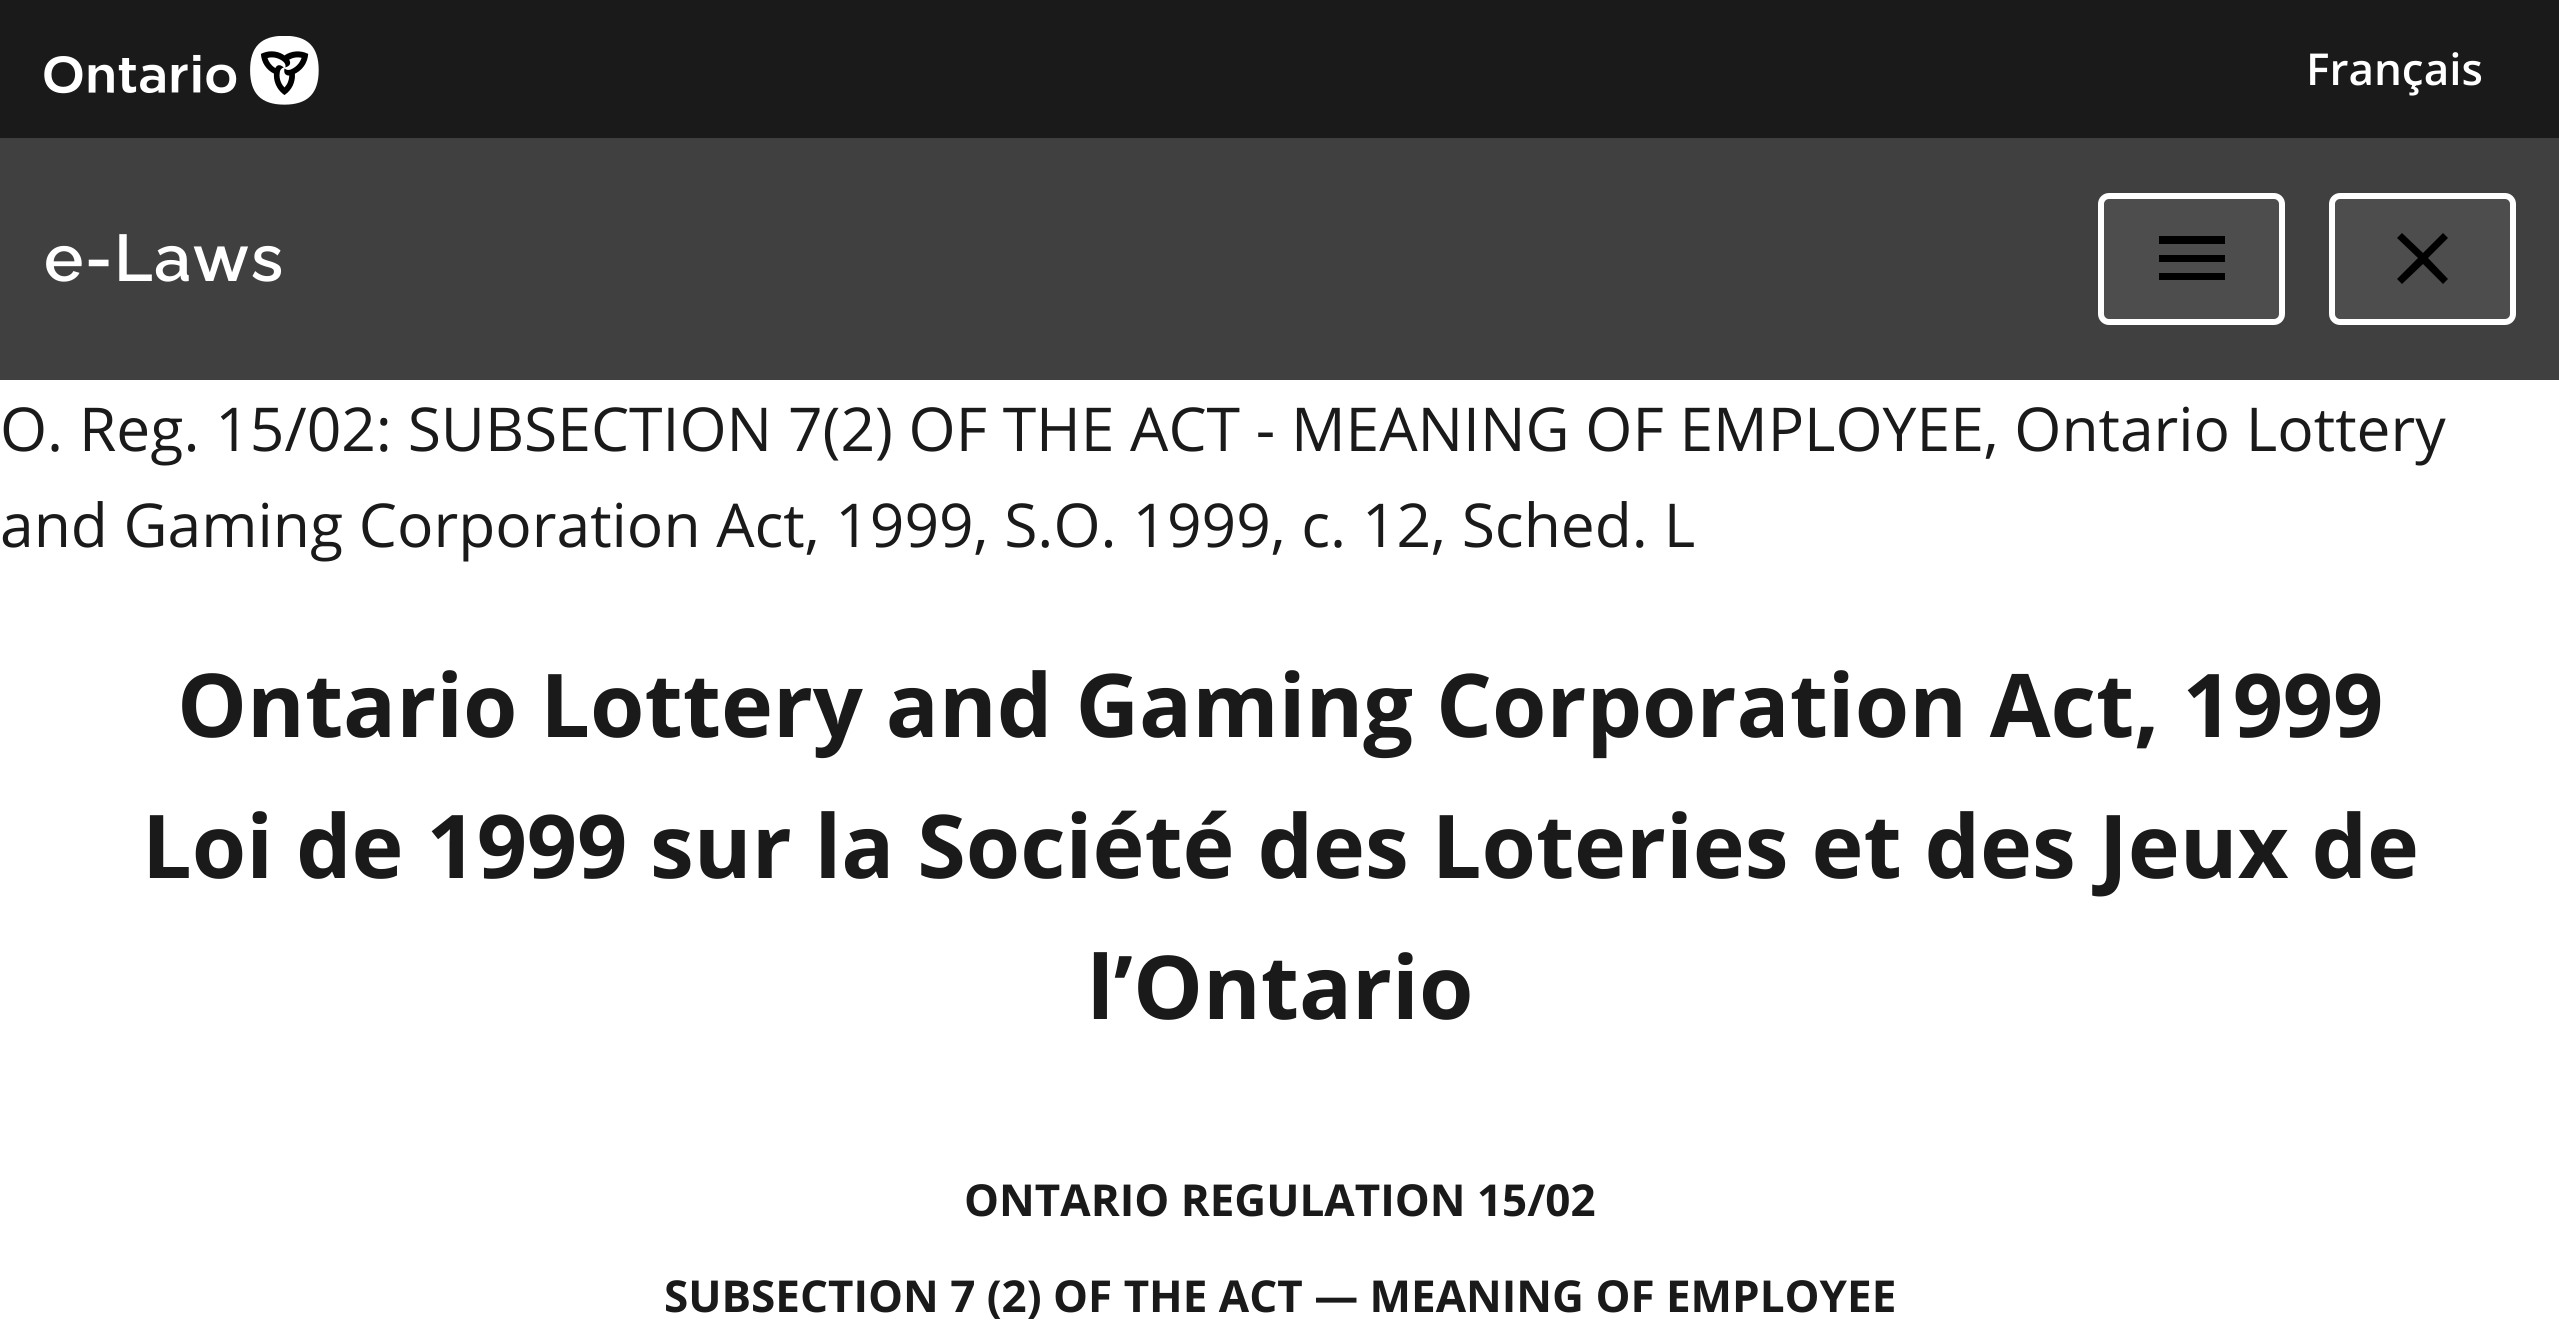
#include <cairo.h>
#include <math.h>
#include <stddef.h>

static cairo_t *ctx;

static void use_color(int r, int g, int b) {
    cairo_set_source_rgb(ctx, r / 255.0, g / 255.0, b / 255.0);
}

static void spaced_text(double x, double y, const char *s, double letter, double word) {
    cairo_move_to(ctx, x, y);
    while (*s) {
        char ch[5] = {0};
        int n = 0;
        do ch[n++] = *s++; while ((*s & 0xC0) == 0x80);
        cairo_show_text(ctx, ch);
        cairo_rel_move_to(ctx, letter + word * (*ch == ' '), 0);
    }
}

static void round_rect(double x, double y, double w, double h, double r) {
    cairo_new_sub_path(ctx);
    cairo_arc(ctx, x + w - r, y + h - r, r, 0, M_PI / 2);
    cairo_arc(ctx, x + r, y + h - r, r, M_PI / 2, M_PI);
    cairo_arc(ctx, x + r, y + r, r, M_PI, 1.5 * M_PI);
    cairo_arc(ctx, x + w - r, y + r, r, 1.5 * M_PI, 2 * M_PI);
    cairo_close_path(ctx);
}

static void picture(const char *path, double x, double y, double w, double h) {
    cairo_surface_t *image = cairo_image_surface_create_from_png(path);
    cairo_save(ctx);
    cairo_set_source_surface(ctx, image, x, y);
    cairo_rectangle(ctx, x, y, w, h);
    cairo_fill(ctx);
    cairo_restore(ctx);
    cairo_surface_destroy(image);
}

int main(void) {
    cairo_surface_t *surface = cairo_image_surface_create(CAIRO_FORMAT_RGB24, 2559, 1323);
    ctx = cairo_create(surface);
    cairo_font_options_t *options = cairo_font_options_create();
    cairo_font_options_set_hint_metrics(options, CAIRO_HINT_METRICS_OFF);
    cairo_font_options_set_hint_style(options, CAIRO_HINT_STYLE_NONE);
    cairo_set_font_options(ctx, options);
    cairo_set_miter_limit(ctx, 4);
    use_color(255, 255, 255);
    cairo_paint(ctx);
    use_color(26, 26, 26);
    cairo_rectangle(ctx, 0, 0, 2559, 138);
    cairo_fill(ctx);
    picture("img1.png", 44, 36, 275, 69);
    cairo_select_font_face(ctx, "Open Sans SemiBold", CAIRO_FONT_SLANT_NORMAL, CAIRO_FONT_WEIGHT_NORMAL);
    cairo_set_font_size(ctx, 44);
    use_color(255, 255, 255);
    cairo_move_to(ctx, 2306, 85);
    cairo_show_text(ctx, "Français");
    use_color(64, 64, 64);
    cairo_rectangle(ctx, 0, 138, 2559, 242);
    cairo_fill(ctx);
    cairo_select_font_face(ctx, "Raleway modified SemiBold", CAIRO_FONT_SLANT_NORMAL, CAIRO_FONT_WEIGHT_NORMAL);
    cairo_set_font_size(ctx, 66);
    use_color(255, 255, 255);
    spaced_text(44, 281, "e-Laws", 1.5, 0);
    use_color(77, 77, 77);
    round_rect(2101, 196, 181, 126, 8);
    cairo_fill_preserve(ctx);
    use_color(255, 255, 255);
    cairo_set_line_width(ctx, 6);
    cairo_stroke(ctx);
    use_color(0, 0, 0);
    cairo_new_path(ctx);
    cairo_move_to(ctx, 2159, 280);
    cairo_line_to(ctx, 2225, 280);
    cairo_line_to(ctx, 2225, 273);
    cairo_line_to(ctx, 2159, 273);
    cairo_close_path(ctx);
    cairo_move_to(ctx, 2159, 262);
    cairo_line_to(ctx, 2225, 262);
    cairo_line_to(ctx, 2225, 255);
    cairo_line_to(ctx, 2159, 255);
    cairo_close_path(ctx);
    cairo_move_to(ctx, 2159, 236);
    cairo_line_to(ctx, 2159, 244);
    cairo_line_to(ctx, 2225, 244);
    cairo_line_to(ctx, 2225, 236);
    cairo_close_path(ctx);
    cairo_fill(ctx);
    use_color(77, 77, 77);
    round_rect(2332, 196, 181, 126, 8);
    cairo_fill_preserve(ctx);
    use_color(255, 255, 255);
    cairo_stroke(ctx);
    use_color(0, 0, 0);
    cairo_new_path(ctx);
    cairo_move_to(ctx, 2448, 238);
    cairo_line_to(ctx, 2443, 233);
    cairo_line_to(ctx, 2423, 253);
    cairo_line_to(ctx, 2402, 233);
    cairo_line_to(ctx, 2397, 238);
    cairo_line_to(ctx, 2418, 258);
    cairo_line_to(ctx, 2397, 279);
    cairo_line_to(ctx, 2402, 284);
    cairo_line_to(ctx, 2423, 264);
    cairo_line_to(ctx, 2443, 284);
    cairo_line_to(ctx, 2448, 279);
    cairo_line_to(ctx, 2428, 258);
    cairo_close_path(ctx);
    cairo_fill(ctx);
    cairo_select_font_face(ctx, "Open Sans", CAIRO_FONT_SLANT_NORMAL, CAIRO_FONT_WEIGHT_NORMAL);
    cairo_set_font_size(ctx, 60.5);
    use_color(26, 26, 26);
    cairo_move_to(ctx, 0, 451);
    cairo_show_text(ctx, "O. Reg. 15/02: SUBSECTION 7(2) OF THE ACT - MEANING OF EMPLOYEE, Ontario Lottery");
    cairo_move_to(ctx, 0, 547);
    cairo_show_text(ctx, "and Gaming Corporation Act, 1999, S.O. 1999, c. 12, Sched. L");
    cairo_select_font_face(ctx, "Open Sans", CAIRO_FONT_SLANT_NORMAL, CAIRO_FONT_WEIGHT_BOLD);
    cairo_set_font_size(ctx, 88);
    cairo_move_to(ctx, 177, 737);
    cairo_show_text(ctx, "Ontario Lottery and Gaming Corporation Act, 1999");
    cairo_move_to(ctx, 142, 878);
    cairo_show_text(ctx, "Loi de 1999 sur la Société des Loteries et des Jeux de");
    cairo_move_to(ctx, 1087, 1019);
    cairo_show_text(ctx, "l’Ontario");
    cairo_set_font_size(ctx, 44);
    cairo_move_to(ctx, 964, 1216);
    cairo_show_text(ctx, "ONTARIO REGULATION 15/02");
    cairo_move_to(ctx, 664, 1312);
    cairo_show_text(ctx, "SUBSECTION 7 (2) OF THE ACT — MEANING OF EMPLOYEE");
    cairo_surface_write_to_png(surface, "result.png");
    cairo_font_options_destroy(options);
    cairo_destroy(ctx);
    cairo_surface_destroy(surface);
    return 0;
}
